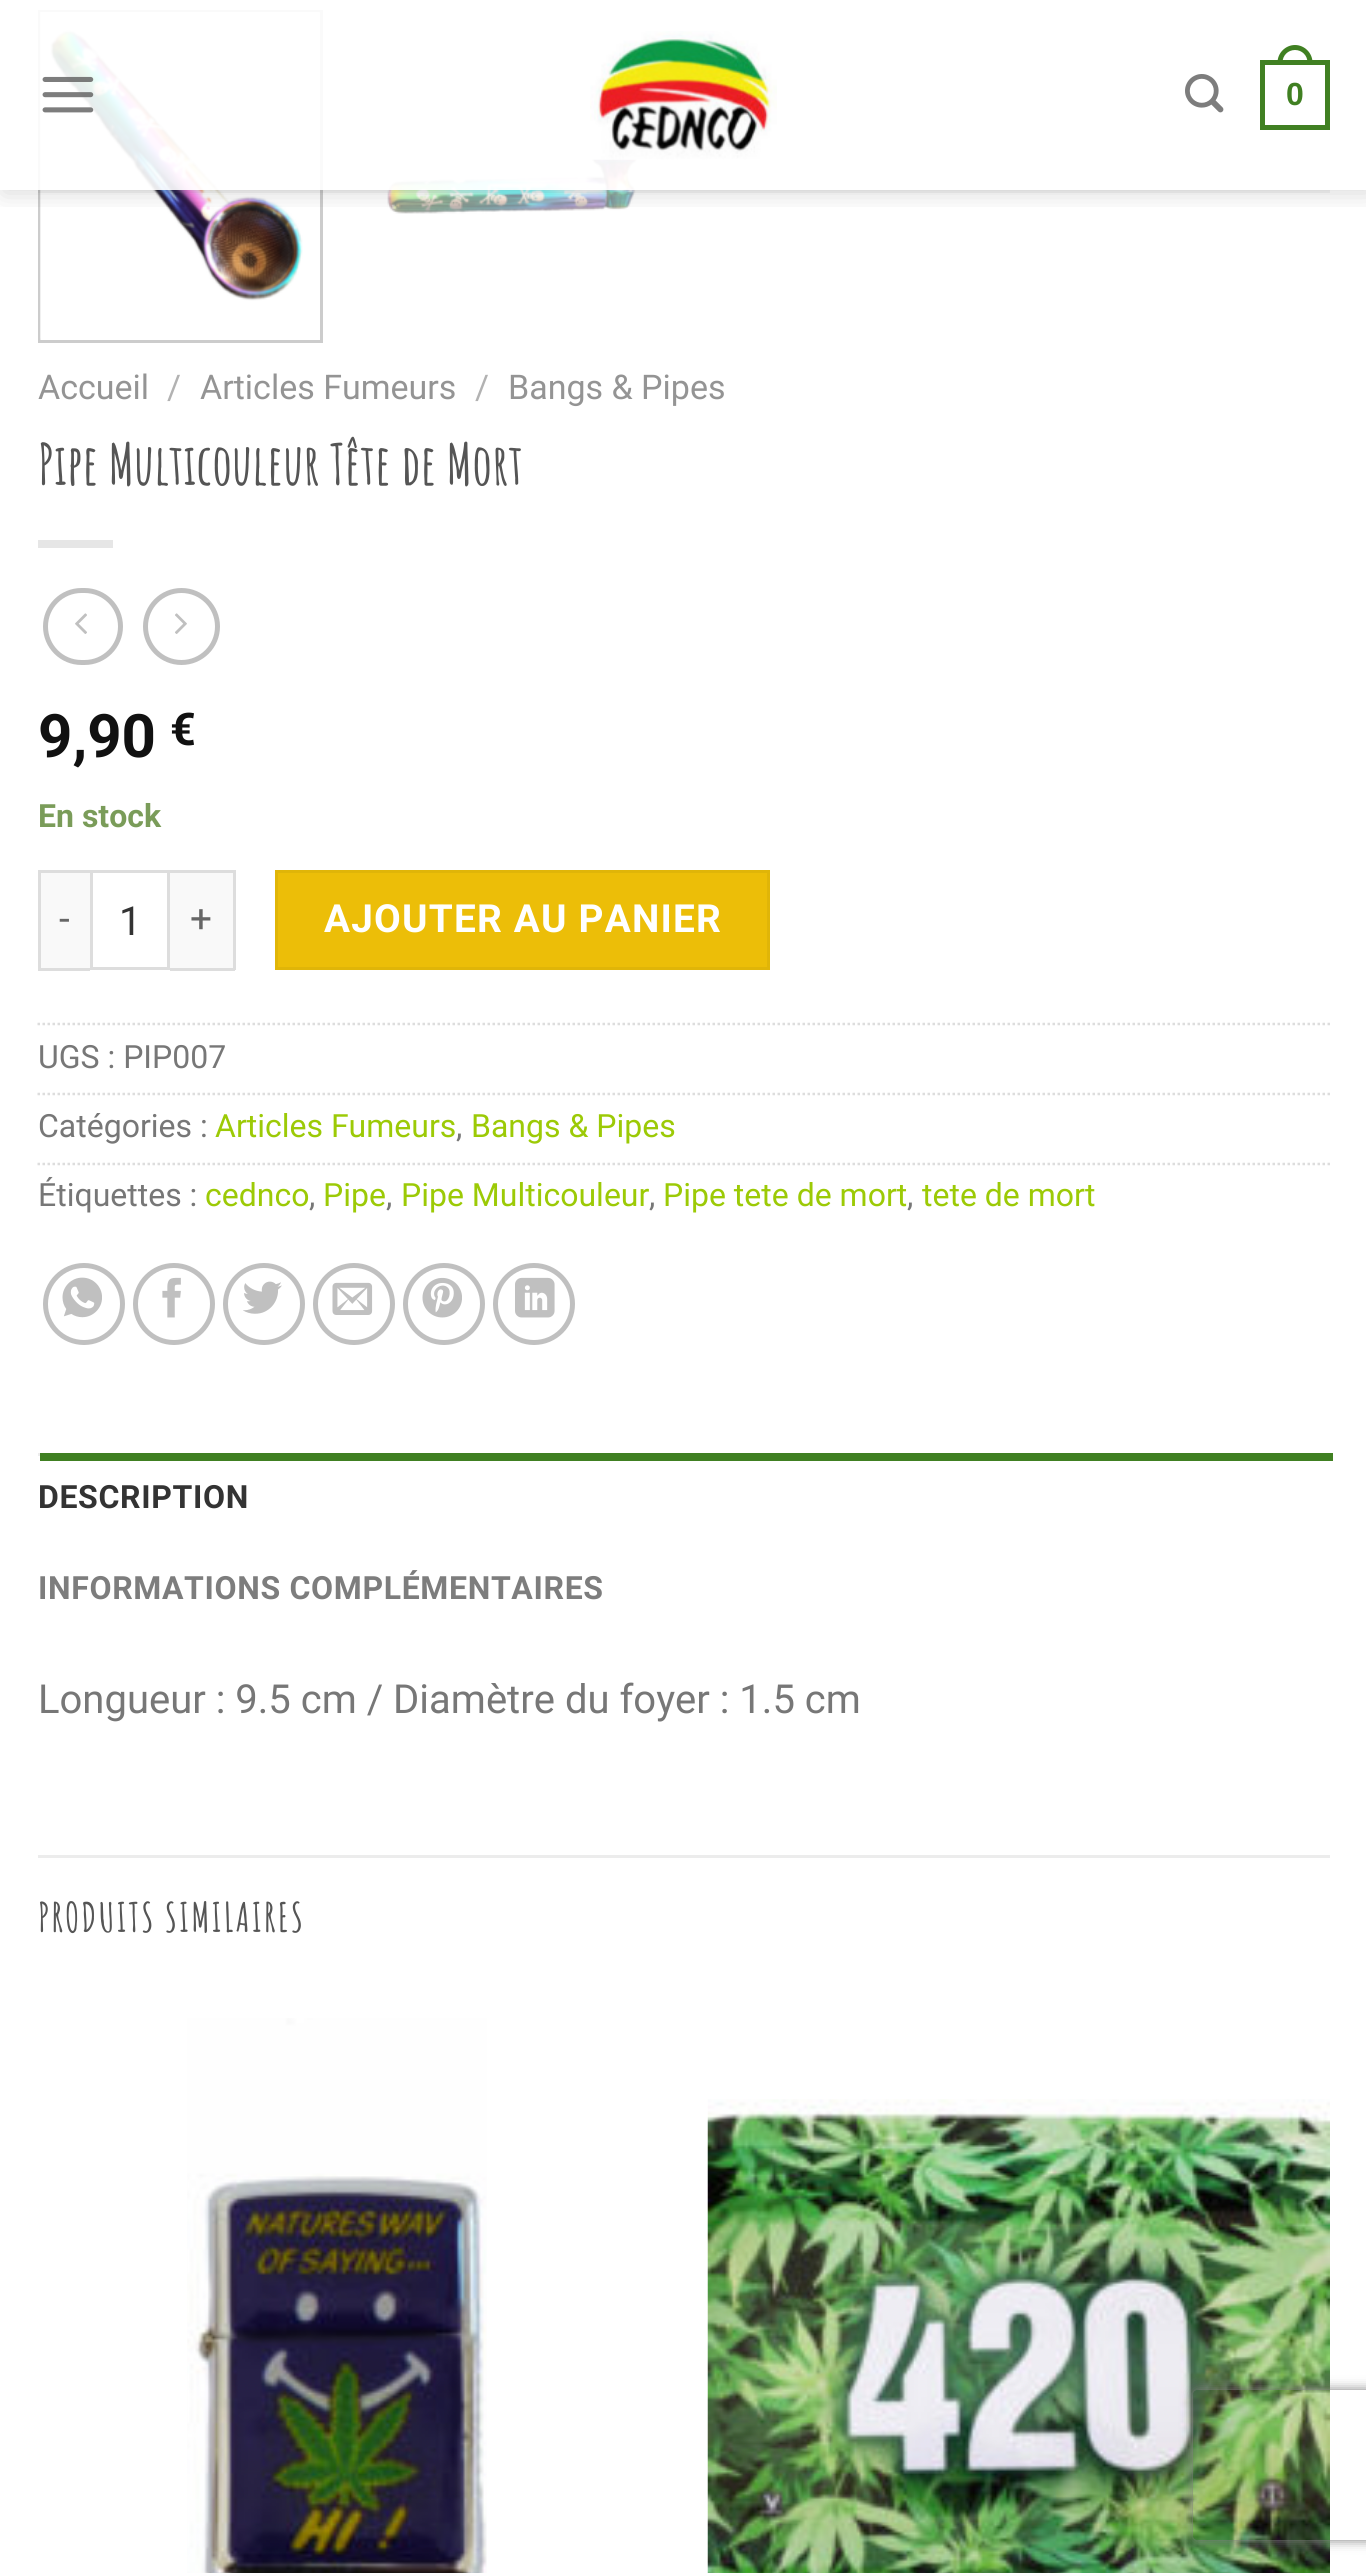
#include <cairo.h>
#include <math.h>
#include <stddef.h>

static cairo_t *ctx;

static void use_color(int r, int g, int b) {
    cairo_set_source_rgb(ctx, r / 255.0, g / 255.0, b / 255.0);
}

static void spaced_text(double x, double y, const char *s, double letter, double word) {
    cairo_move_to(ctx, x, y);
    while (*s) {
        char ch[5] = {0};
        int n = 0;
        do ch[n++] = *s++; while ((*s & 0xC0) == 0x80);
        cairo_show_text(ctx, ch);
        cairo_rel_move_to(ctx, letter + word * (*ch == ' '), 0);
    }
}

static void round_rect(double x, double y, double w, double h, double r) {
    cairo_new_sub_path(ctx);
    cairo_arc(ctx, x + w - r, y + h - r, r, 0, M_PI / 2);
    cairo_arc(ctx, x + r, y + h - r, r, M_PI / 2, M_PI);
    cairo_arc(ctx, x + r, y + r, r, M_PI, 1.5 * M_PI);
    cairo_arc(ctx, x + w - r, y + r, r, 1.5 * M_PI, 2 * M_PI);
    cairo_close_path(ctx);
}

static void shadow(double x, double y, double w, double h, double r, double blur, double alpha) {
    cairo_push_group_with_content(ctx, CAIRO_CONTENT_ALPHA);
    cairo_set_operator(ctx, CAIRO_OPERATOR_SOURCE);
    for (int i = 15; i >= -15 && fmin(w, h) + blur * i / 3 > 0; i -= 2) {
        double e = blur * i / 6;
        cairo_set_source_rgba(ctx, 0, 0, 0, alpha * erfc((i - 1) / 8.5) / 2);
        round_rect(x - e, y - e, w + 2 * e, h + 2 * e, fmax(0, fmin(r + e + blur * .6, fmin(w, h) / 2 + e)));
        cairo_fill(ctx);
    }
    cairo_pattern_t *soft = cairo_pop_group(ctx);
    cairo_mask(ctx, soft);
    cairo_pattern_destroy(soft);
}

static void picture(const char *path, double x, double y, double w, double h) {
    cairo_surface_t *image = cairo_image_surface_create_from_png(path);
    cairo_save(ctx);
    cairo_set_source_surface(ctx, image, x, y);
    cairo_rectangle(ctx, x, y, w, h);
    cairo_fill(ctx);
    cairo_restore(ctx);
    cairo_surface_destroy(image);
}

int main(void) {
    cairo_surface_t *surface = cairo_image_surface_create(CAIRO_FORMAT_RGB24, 1366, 2573);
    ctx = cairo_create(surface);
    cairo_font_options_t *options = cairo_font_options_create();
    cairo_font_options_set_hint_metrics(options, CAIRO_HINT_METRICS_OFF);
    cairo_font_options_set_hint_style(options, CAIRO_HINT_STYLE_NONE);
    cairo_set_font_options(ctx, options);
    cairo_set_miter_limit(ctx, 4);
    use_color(255, 255, 255);
    cairo_paint(ctx);
    cairo_rectangle(ctx, 39.5, 11.5, 282, 330);
    use_color(204, 204, 204);
    cairo_set_line_width(ctx, 3);
    cairo_stroke(ctx);
    picture("img4.png", 40, 12, 280, 328);
    picture("img5.png", 387, 139, 254, 75);
    cairo_save(ctx);
    cairo_rectangle(ctx, 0, 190, 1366, 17);
    cairo_clip(ctx);
    use_color(0, 0, 0);
    shadow(3, 3, 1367, 190, 0, 12.5, 0.15);
    cairo_restore(ctx);
    cairo_set_source_rgba(ctx, 1, 1, 1, 0.9);
    cairo_rectangle(ctx, 38, 10, 603, 180);
    cairo_fill(ctx);
    picture("img1.png", 42, 76, 52, 37);
    picture("img2.png", 590, 31, 187, 129);
    picture("img3.png", 1185, 74, 39, 39);
    cairo_rectangle(ctx, 1262.5, 62.5, 65, 65);
    use_color(64, 128, 34);
    cairo_set_line_width(ctx, 5);
    cairo_stroke(ctx);
    cairo_set_fill_rule(ctx, CAIRO_FILL_RULE_EVEN_ODD);
    cairo_new_path(ctx);
    cairo_move_to(ctx, 1295, 45);
    cairo_curve_to(ctx, 1304.5, 45, 1312.5, 53, 1312.5, 62.5);
    cairo_line_to(ctx, 1312.5, 65);
    cairo_line_to(ctx, 1277.5, 65);
    cairo_line_to(ctx, 1277.5, 62.5);
    cairo_curve_to(ctx, 1277.5, 53, 1285.5, 45, 1295, 45);
    cairo_close_path(ctx);
    cairo_move_to(ctx, 1295, 50);
    cairo_curve_to(ctx, 1302, 50, 1307.5, 55.5, 1307.5, 62.5);
    cairo_line_to(ctx, 1307.5, 65);
    cairo_line_to(ctx, 1282.5, 65);
    cairo_line_to(ctx, 1282.5, 62.5);
    cairo_curve_to(ctx, 1282.5, 55.5, 1288, 50, 1295, 50);
    cairo_close_path(ctx);
    cairo_fill(ctx);
    cairo_select_font_face(ctx, "Liberation Sans", CAIRO_FONT_SLANT_NORMAL, CAIRO_FONT_WEIGHT_BOLD);
    cairo_set_font_size(ctx, 32);
    cairo_move_to(ctx, 1286, 105);
    cairo_show_text(ctx, "0");
    cairo_set_source_rgba(ctx, 0.467, 0.467, 0.467, 0.1);
    cairo_rectangle(ctx, 38, 190, 1292, 3);
    cairo_fill(ctx);
    cairo_select_font_face(ctx, "Roboto", CAIRO_FONT_SLANT_NORMAL, CAIRO_FONT_WEIGHT_NORMAL);
    cairo_set_font_size(ctx, 34);
    use_color(148, 148, 148);
    cairo_move_to(ctx, 38, 399);
    cairo_show_text(ctx, "Accueil");
    use_color(178, 178, 178);
    cairo_move_to(ctx, 167, 399);
    cairo_show_text(ctx, "/");
    use_color(148, 148, 148);
    cairo_move_to(ctx, 200, 399);
    cairo_show_text(ctx, "Articles Fumeurs");
    use_color(178, 178, 178);
    cairo_move_to(ctx, 475, 399);
    cairo_show_text(ctx, "/");
    use_color(148, 148, 148);
    cairo_move_to(ctx, 508, 399);
    cairo_show_text(ctx, "Bangs & Pipes");
    cairo_select_font_face(ctx, "Amatic SC", CAIRO_FONT_SLANT_NORMAL, CAIRO_FONT_WEIGHT_BOLD);
    cairo_set_font_size(ctx, 56);
    use_color(85, 85, 85);
    cairo_move_to(ctx, 38, 485);
    cairo_show_text(ctx, "Pipe Multicouleur Tête de Mort");
    use_color(230, 230, 230);
    cairo_rectangle(ctx, 38, 540, 75, 8);
    cairo_fill(ctx);
    round_rect(45.5, 590.5, 75, 72, 36);
    use_color(192, 192, 192);
    cairo_stroke(ctx);
    picture("img6.png", 75, 613, 12, 21);
    cairo_arc(ctx, 181.5, 626.5, 36, 0, 2 * M_PI);
    cairo_stroke(ctx);
    picture("img7.png", 175, 613, 12, 21);
    cairo_select_font_face(ctx, "Roboto", CAIRO_FONT_SLANT_NORMAL, CAIRO_FONT_WEIGHT_BOLD);
    cairo_set_font_size(ctx, 60);
    use_color(17, 17, 17);
    cairo_move_to(ctx, 38, 757);
    cairo_show_text(ctx, "9,90");
    cairo_set_font_size(ctx, 45);
    cairo_move_to(ctx, 170, 745);
    cairo_show_text(ctx, "€");
    cairo_set_font_size(ctx, 32);
    use_color(122, 156, 89);
    cairo_move_to(ctx, 38, 827);
    cairo_show_text(ctx, "En stock");
    use_color(249, 249, 249);
    cairo_rectangle(ctx, 41, 873, 49, 95);
    cairo_fill(ctx);
    use_color(221, 221, 221);
    cairo_rectangle(ctx, 38, 870, 52, 3);
    cairo_fill(ctx);
    cairo_rectangle(ctx, 38, 968, 52, 3);
    cairo_fill(ctx);
    cairo_rectangle(ctx, 38, 870, 3, 100);
    cairo_fill(ctx);
    cairo_select_font_face(ctx, "Roboto", CAIRO_FONT_SLANT_NORMAL, CAIRO_FONT_WEIGHT_NORMAL);
    cairo_set_font_size(ctx, 38.75);
    use_color(102, 102, 102);
    spaced_text(59, 932, "-", 1.2, 0);
    cairo_rectangle(ctx, 91.5, 871.5, 77, 97);
    use_color(221, 221, 221);
    cairo_set_line_width(ctx, 3);
    cairo_stroke(ctx);
    cairo_set_font_size(ctx, 40);
    use_color(51, 51, 51);
    cairo_move_to(ctx, 119, 935);
    cairo_show_text(ctx, "1");
    use_color(249, 249, 249);
    cairo_rectangle(ctx, 170, 873, 63, 95);
    cairo_fill(ctx);
    use_color(221, 221, 221);
    cairo_rectangle(ctx, 170, 870, 65, 3);
    cairo_fill(ctx);
    cairo_rectangle(ctx, 233, 870, 3, 100);
    cairo_fill(ctx);
    cairo_rectangle(ctx, 170, 968, 65, 3);
    cairo_fill(ctx);
    cairo_set_font_size(ctx, 38.75);
    use_color(102, 102, 102);
    spaced_text(190, 932, "+", 1.2, 0);
    use_color(236, 190, 8);
    cairo_rectangle(ctx, 276.5, 871.5, 492, 97);
    cairo_fill_preserve(ctx);
    use_color(224, 181, 8);
    cairo_stroke(ctx);
    cairo_select_font_face(ctx, "Roboto", CAIRO_FONT_SLANT_NORMAL, CAIRO_FONT_WEIGHT_BOLD);
    use_color(255, 255, 255);
    spaced_text(324, 932, "AJOUTER AU PANIER", 1.2, 0);
    cairo_new_path(ctx);
    cairo_move_to(ctx, 37.5, 1024);
    cairo_line_to(ctx, 1330, 1024);
    use_color(221, 221, 221);
    cairo_set_line_width(ctx, 2.5);
    cairo_set_dash(ctx, (double[]){2.5, 2.5}, 2, 0);
    cairo_stroke(ctx);
    cairo_select_font_face(ctx, "Roboto", CAIRO_FONT_SLANT_NORMAL, CAIRO_FONT_WEIGHT_NORMAL);
    cairo_set_font_size(ctx, 32);
    use_color(119, 119, 119);
    cairo_move_to(ctx, 38, 1068);
    cairo_show_text(ctx, "UGS : PIP007");
    cairo_new_path(ctx);
    cairo_move_to(ctx, 37.5, 1094);
    cairo_line_to(ctx, 1330, 1094);
    use_color(221, 221, 221);
    cairo_stroke(ctx);
    use_color(119, 119, 119);
    cairo_move_to(ctx, 38, 1137);
    cairo_show_text(ctx, "Catégories :");
    use_color(156, 202, 6);
    cairo_move_to(ctx, 215, 1137);
    cairo_show_text(ctx, "Articles Fumeurs");
    use_color(119, 119, 119);
    cairo_move_to(ctx, 456, 1137);
    cairo_show_text(ctx, ",");
    use_color(156, 202, 6);
    cairo_move_to(ctx, 471, 1137);
    cairo_show_text(ctx, "Bangs & Pipes");
    cairo_new_path(ctx);
    cairo_move_to(ctx, 37.5, 1164);
    cairo_line_to(ctx, 1330, 1164);
    use_color(221, 221, 221);
    cairo_stroke(ctx);
    use_color(119, 119, 119);
    cairo_move_to(ctx, 38, 1206);
    cairo_show_text(ctx, "Étiquettes :");
    use_color(156, 202, 6);
    cairo_move_to(ctx, 205, 1206);
    cairo_show_text(ctx, "cednco");
    use_color(119, 119, 119);
    cairo_move_to(ctx, 309, 1206);
    cairo_show_text(ctx, ",");
    use_color(156, 202, 6);
    cairo_move_to(ctx, 323, 1206);
    cairo_show_text(ctx, "Pipe");
    use_color(119, 119, 119);
    cairo_move_to(ctx, 386, 1206);
    cairo_show_text(ctx, ",");
    use_color(156, 202, 6);
    cairo_move_to(ctx, 401, 1206);
    cairo_show_text(ctx, "Pipe Multicouleur");
    use_color(119, 119, 119);
    cairo_move_to(ctx, 649, 1206);
    cairo_show_text(ctx, ",");
    use_color(156, 202, 6);
    cairo_move_to(ctx, 663, 1206);
    cairo_show_text(ctx, "Pipe tete de mort");
    use_color(119, 119, 119);
    cairo_move_to(ctx, 907, 1206);
    cairo_show_text(ctx, ",");
    use_color(156, 202, 6);
    cairo_move_to(ctx, 922, 1206);
    cairo_show_text(ctx, "tete de mort");
    cairo_new_path(ctx);
    cairo_arc(ctx, 84, 1304, 38.5, 0, 2 * M_PI);
    use_color(192, 192, 192);
    cairo_set_line_width(ctx, 5);
    cairo_set_dash(ctx, NULL, 0, 0);
    cairo_stroke(ctx);
    picture("img8.png", 62, 1277, 40, 41);
    cairo_arc(ctx, 174, 1304, 38.5, 0, 2 * M_PI);
    cairo_stroke(ctx);
    picture("img9.png", 162, 1277, 19, 41);
    cairo_arc(ctx, 264, 1304, 38.5, 0, 2 * M_PI);
    cairo_stroke(ctx);
    picture("img10.png", 243, 1281, 39, 33);
    cairo_arc(ctx, 354, 1304, 38.5, 0, 2 * M_PI);
    cairo_stroke(ctx);
    picture("img11.png", 332, 1282, 41, 33);
    cairo_arc(ctx, 444, 1304, 38.5, 0, 2 * M_PI);
    cairo_stroke(ctx);
    picture("img12.png", 422, 1277, 40, 41);
    cairo_arc(ctx, 534, 1304, 38.5, 0, 2 * M_PI);
    cairo_stroke(ctx);
    picture("img13.png", 515, 1277, 40, 41);
    use_color(236, 236, 236);
    cairo_rectangle(ctx, 38, 1453, 2, 3);
    cairo_fill(ctx);
    use_color(64, 128, 34);
    cairo_rectangle(ctx, 40, 1453, 1293, 8);
    cairo_fill(ctx);
    cairo_select_font_face(ctx, "Roboto", CAIRO_FONT_SLANT_NORMAL, CAIRO_FONT_WEIGHT_BOLD);
    use_color(51, 51, 51);
    spaced_text(38, 1508, "DESCRIPTION", 0.65, 0);
    use_color(125, 125, 125);
    spaced_text(38, 1599, "INFORMATIONS COMPLÉMENTAIRES", 0.65, 0);
    cairo_select_font_face(ctx, "Roboto", CAIRO_FONT_SLANT_NORMAL, CAIRO_FONT_WEIGHT_NORMAL);
    cairo_set_font_size(ctx, 40);
    use_color(119, 119, 119);
    cairo_move_to(ctx, 38, 1713);
    cairo_show_text(ctx, "Longueur : 9.5 cm / Diamètre du foyer : 1.5 cm");
    use_color(236, 236, 236);
    cairo_rectangle(ctx, 38, 1855, 1292, 3);
    cairo_fill(ctx);
    cairo_select_font_face(ctx, "Amatic SC", CAIRO_FONT_SLANT_NORMAL, CAIRO_FONT_WEIGHT_BOLD);
    use_color(85, 85, 85);
    spaced_text(38, 1932, "PRODUITS SIMILAIRES", 2, 0);
    picture("img14.png", 187, 2018, 300, 555);
    picture("img15.png", 707, 2099, 623, 474);
    cairo_save(ctx);
    cairo_new_path(ctx);
    cairo_move_to(ctx, 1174, 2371);
    cairo_line_to(ctx, 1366, 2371);
    cairo_line_to(ctx, 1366, 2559);
    cairo_line_to(ctx, 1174, 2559);
    cairo_close_path(ctx);
    cairo_move_to(ctx, 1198, 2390);
    cairo_line_to(ctx, 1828, 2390);
    cairo_curve_to(ctx, 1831, 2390, 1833, 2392, 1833, 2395);
    cairo_line_to(ctx, 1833, 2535);
    cairo_curve_to(ctx, 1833, 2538, 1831, 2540, 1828, 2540);
    cairo_line_to(ctx, 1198, 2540);
    cairo_curve_to(ctx, 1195, 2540, 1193, 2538, 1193, 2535);
    cairo_line_to(ctx, 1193, 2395);
    cairo_curve_to(ctx, 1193, 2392, 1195, 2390, 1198, 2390);
    cairo_close_path(ctx);
    cairo_clip(ctx);
    use_color(128, 128, 128);
    shadow(1193, 2390, 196, 150, 5, 6, 1);
    cairo_restore(ctx);
    cairo_surface_write_to_png(surface, "result.png");
    cairo_font_options_destroy(options);
    cairo_destroy(ctx);
    cairo_surface_destroy(surface);
    return 0;
}
